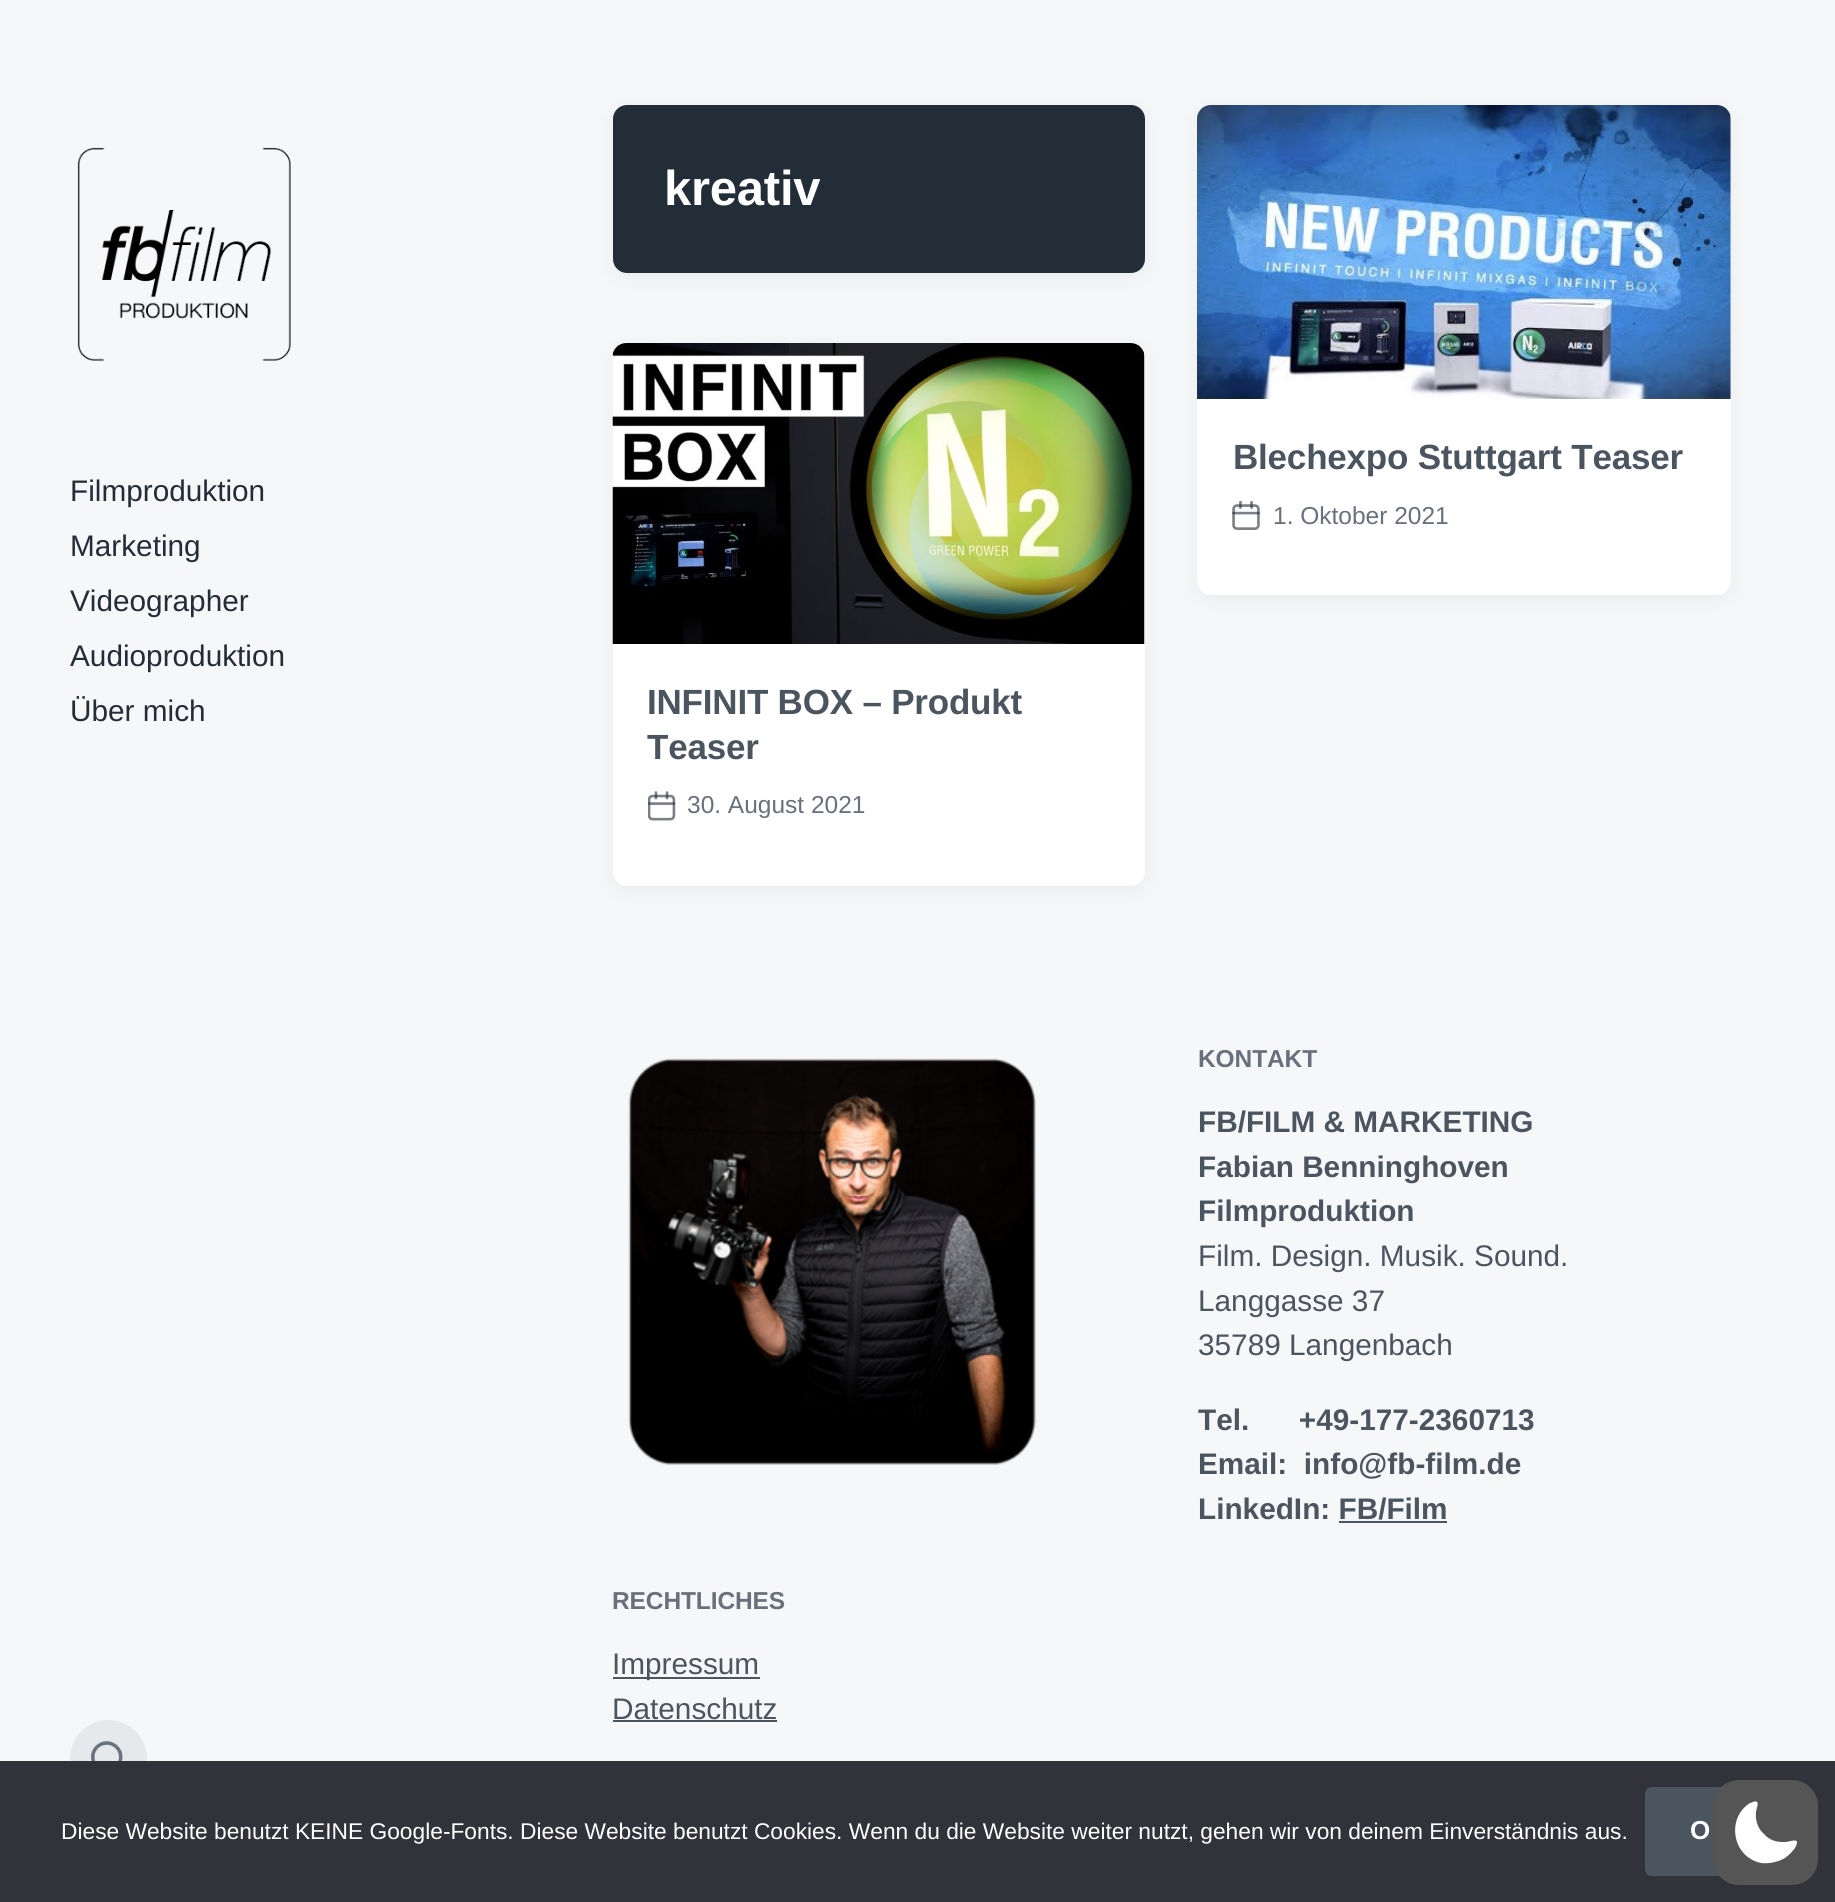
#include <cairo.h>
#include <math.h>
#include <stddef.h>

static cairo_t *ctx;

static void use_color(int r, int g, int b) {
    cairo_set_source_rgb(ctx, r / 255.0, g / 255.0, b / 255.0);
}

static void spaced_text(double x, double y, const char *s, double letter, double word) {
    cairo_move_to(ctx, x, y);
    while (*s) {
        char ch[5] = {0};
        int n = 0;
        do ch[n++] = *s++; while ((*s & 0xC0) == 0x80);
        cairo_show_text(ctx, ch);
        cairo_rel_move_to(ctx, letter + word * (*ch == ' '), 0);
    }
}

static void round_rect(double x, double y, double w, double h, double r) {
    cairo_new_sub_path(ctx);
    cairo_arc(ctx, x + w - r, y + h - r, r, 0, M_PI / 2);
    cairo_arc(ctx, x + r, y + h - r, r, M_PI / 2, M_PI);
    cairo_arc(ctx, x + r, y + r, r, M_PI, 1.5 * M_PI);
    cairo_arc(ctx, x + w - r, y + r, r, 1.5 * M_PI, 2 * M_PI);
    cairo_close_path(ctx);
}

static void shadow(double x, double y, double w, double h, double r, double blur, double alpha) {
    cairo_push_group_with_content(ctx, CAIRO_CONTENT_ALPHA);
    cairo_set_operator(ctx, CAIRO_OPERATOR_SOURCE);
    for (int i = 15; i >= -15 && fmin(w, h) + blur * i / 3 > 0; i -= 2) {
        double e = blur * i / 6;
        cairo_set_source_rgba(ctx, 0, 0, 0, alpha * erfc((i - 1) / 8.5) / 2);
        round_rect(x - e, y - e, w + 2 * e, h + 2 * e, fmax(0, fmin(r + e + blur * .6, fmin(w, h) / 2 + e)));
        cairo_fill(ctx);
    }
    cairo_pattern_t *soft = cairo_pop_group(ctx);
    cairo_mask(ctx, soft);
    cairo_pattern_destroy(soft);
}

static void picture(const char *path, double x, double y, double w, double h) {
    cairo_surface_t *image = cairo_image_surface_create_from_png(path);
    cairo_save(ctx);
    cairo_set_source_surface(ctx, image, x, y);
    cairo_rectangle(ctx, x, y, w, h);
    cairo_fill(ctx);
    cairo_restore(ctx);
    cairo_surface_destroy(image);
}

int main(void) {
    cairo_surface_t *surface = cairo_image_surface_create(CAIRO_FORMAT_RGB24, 1835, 1902);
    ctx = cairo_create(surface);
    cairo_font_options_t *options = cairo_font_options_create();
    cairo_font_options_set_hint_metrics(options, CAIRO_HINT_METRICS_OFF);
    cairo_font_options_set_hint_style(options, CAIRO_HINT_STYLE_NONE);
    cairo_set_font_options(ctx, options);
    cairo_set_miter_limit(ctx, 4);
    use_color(246, 247, 248);
    cairo_paint(ctx);
    picture("img1.png", 77, 147, 214, 214);
    cairo_select_font_face(ctx, "Liberation Sans", CAIRO_FONT_SLANT_NORMAL, CAIRO_FONT_WEIGHT_NORMAL);
    cairo_set_font_size(ctx, 29.75);
    use_color(35, 45, 55);
    cairo_move_to(ctx, 70, 501);
    cairo_show_text(ctx, "Filmproduktion");
    cairo_move_to(ctx, 70, 556);
    cairo_show_text(ctx, "Marketing");
    cairo_move_to(ctx, 70, 611);
    cairo_show_text(ctx, "Videographer");
    cairo_move_to(ctx, 70, 666);
    cairo_show_text(ctx, "Audioproduktion");
    cairo_move_to(ctx, 70, 721);
    cairo_show_text(ctx, "Über mich");
    use_color(230, 233, 236);
    cairo_new_path(ctx);
    cairo_arc(ctx, 108.5, 1758.5, 38.5, 0, 2 * M_PI);
    cairo_fill(ctx);
    picture("img2.png", 91, 1741, 32, 20);
    use_color(5, 10, 15);
    shadow(613, 110, 532, 168, 14, 10.5, 0.05);
    use_color(35, 45, 55);
    round_rect(613, 105, 532, 168, 14);
    cairo_fill(ctx);
    cairo_select_font_face(ctx, "Liberation Sans", CAIRO_FONT_SLANT_NORMAL, CAIRO_FONT_WEIGHT_BOLD);
    cairo_set_font_size(ctx, 49);
    use_color(255, 255, 255);
    spaced_text(664, 205, "kreativ", -0.25, 0);
    use_color(5, 10, 15);
    shadow(1197, 110, 534, 490, 14, 10.5, 0.05);
    use_color(255, 255, 255);
    round_rect(1197, 105, 534, 490, 14);
    cairo_fill(ctx);
    picture("img3.png", 1197, 105, 534, 294);
    cairo_set_font_size(ctx, 35);
    use_color(75, 85, 95);
    spaced_text(1233, 469, "Blechexpo Stuttgart Teaser", -0.2, 0);
    picture("img4.png", 1232, 501, 28, 29);
    cairo_select_font_face(ctx, "Liberation Sans", CAIRO_FONT_SLANT_NORMAL, CAIRO_FONT_WEIGHT_NORMAL);
    cairo_set_font_size(ctx, 24.5);
    use_color(104, 113, 123);
    cairo_move_to(ctx, 1273, 524);
    cairo_show_text(ctx, "1. Oktober 2021");
    use_color(5, 10, 15);
    shadow(613, 348, 532, 543, 14, 10.5, 0.05);
    use_color(255, 255, 255);
    round_rect(613, 343, 532, 543, 14);
    cairo_fill(ctx);
    picture("img5.png", 612, 343, 533, 301);
    cairo_select_font_face(ctx, "Liberation Sans", CAIRO_FONT_SLANT_NORMAL, CAIRO_FONT_WEIGHT_BOLD);
    cairo_set_font_size(ctx, 35);
    use_color(75, 85, 95);
    spaced_text(647, 714, "INFINIT BOX – Produkt", -0.2, 0);
    spaced_text(647, 759, "Teaser", -0.2, 0);
    picture("img6.png", 648, 791, 28, 30);
    cairo_select_font_face(ctx, "Liberation Sans", CAIRO_FONT_SLANT_NORMAL, CAIRO_FONT_WEIGHT_NORMAL);
    cairo_set_font_size(ctx, 24.5);
    use_color(104, 113, 123);
    cairo_move_to(ctx, 687, 813);
    cairo_show_text(ctx, "30. August 2021");
    picture("img7.png", 628, 1058, 408, 407);
    cairo_select_font_face(ctx, "Liberation Sans", CAIRO_FONT_SLANT_NORMAL, CAIRO_FONT_WEIGHT_BOLD);
    spaced_text(1198, 1067, "KONTAKT", -0.1, 0);
    cairo_set_font_size(ctx, 29.75);
    use_color(75, 85, 95);
    cairo_move_to(ctx, 1198, 1132);
    cairo_show_text(ctx, "FB/FILM & MARKETING");
    cairo_move_to(ctx, 1198, 1177);
    cairo_show_text(ctx, "Fabian Benninghoven");
    cairo_move_to(ctx, 1198, 1221);
    cairo_show_text(ctx, "Filmproduktion");
    cairo_select_font_face(ctx, "Liberation Sans", CAIRO_FONT_SLANT_NORMAL, CAIRO_FONT_WEIGHT_NORMAL);
    cairo_move_to(ctx, 1198, 1266);
    cairo_show_text(ctx, "Film. Design. Musik. Sound.");
    cairo_move_to(ctx, 1198, 1311);
    cairo_show_text(ctx, "Langgasse 37");
    cairo_move_to(ctx, 1198, 1355);
    cairo_show_text(ctx, "35789 Langenbach");
    cairo_select_font_face(ctx, "Liberation Sans", CAIRO_FONT_SLANT_NORMAL, CAIRO_FONT_WEIGHT_BOLD);
    cairo_move_to(ctx, 1198, 1430);
    cairo_show_text(ctx, "Tel.      +49-177-2360713");
    cairo_move_to(ctx, 1198, 1474);
    cairo_show_text(ctx, "Email:  info@fb-film.de");
    cairo_move_to(ctx, 1198, 1519);
    cairo_show_text(ctx, "LinkedIn: FB/Film");
    cairo_rectangle(ctx, 1339, 1521, 108, 2);
    cairo_fill(ctx);
    cairo_set_font_size(ctx, 24.5);
    use_color(104, 113, 123);
    spaced_text(612, 1609, "RECHTLICHES", -0.1, 0);
    use_color(75, 85, 95);
    cairo_rectangle(ctx, 613, 1677, 147, 2);
    cairo_fill(ctx);
    cairo_select_font_face(ctx, "Liberation Sans", CAIRO_FONT_SLANT_NORMAL, CAIRO_FONT_WEIGHT_NORMAL);
    cairo_set_font_size(ctx, 29.75);
    cairo_move_to(ctx, 612, 1674);
    cairo_show_text(ctx, "Impressum");
    cairo_move_to(ctx, 612, 1719);
    cairo_show_text(ctx, "Datenschutz");
    cairo_rectangle(ctx, 613, 1720, 164, 2);
    cairo_fill(ctx);
    use_color(50, 50, 58);
    cairo_rectangle(ctx, 0, 1761, 1835, 141);
    cairo_fill(ctx);
    cairo_set_font_size(ctx, 22.75);
    use_color(255, 255, 255);
    cairo_move_to(ctx, 61, 1839);
    cairo_show_text(ctx, "Diese Website benutzt KEINE Google-Fonts. Diese Website benutzt Cookies. Wenn du die Website weiter nutzt, gehen wir von deinem Einverständnis aus.");
    use_color(75, 85, 95);
    round_rect(1645, 1787, 130, 89, 7);
    cairo_fill(ctx);
    cairo_select_font_face(ctx, "Liberation Sans", CAIRO_FONT_SLANT_NORMAL, CAIRO_FONT_WEIGHT_BOLD);
    cairo_set_font_size(ctx, 26);
    use_color(255, 255, 255);
    cairo_move_to(ctx, 1690, 1839);
    cairo_show_text(ctx, "O");
    use_color(85, 85, 85);
    round_rect(1713, 1780, 105, 105, 26);
    cairo_fill(ctx);
    use_color(254, 254, 254);
    cairo_set_fill_rule(ctx, CAIRO_FILL_RULE_EVEN_ODD);
    cairo_new_path(ctx);
    cairo_move_to(ctx, 1757, 1802);
    cairo_curve_to(ctx, 1759, 1803, 1756, 1810, 1756, 1812);
    cairo_curve_to(ctx, 1755, 1820, 1758, 1829, 1764, 1834);
    cairo_curve_to(ctx, 1769, 1840, 1776, 1842, 1783, 1842);
    cairo_curve_to(ctx, 1789, 1843, 1802, 1835, 1795, 1848);
    cairo_curve_to(ctx, 1792, 1852, 1789, 1855, 1785, 1858);
    cairo_curve_to(ctx, 1778, 1862, 1769, 1864, 1761, 1863);
    cairo_curve_to(ctx, 1732, 1857, 1726, 1818, 1750, 1803);
    cairo_curve_to(ctx, 1752, 1803, 1755, 1800, 1757, 1802);
    cairo_close_path(ctx);
    cairo_fill(ctx);
    cairo_surface_write_to_png(surface, "result.png");
    cairo_font_options_destroy(options);
    cairo_destroy(ctx);
    cairo_surface_destroy(surface);
    return 0;
}
